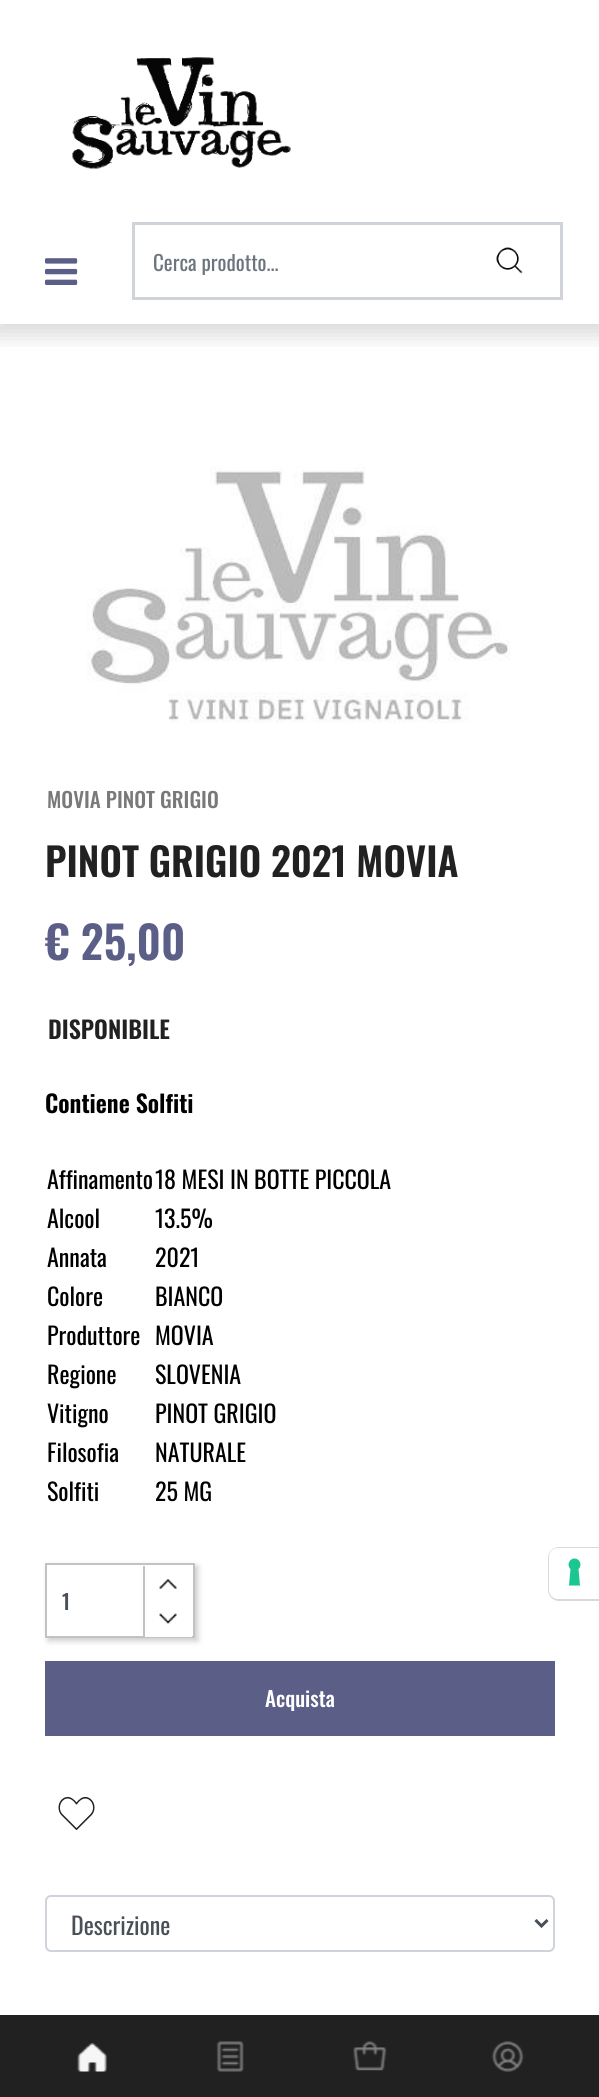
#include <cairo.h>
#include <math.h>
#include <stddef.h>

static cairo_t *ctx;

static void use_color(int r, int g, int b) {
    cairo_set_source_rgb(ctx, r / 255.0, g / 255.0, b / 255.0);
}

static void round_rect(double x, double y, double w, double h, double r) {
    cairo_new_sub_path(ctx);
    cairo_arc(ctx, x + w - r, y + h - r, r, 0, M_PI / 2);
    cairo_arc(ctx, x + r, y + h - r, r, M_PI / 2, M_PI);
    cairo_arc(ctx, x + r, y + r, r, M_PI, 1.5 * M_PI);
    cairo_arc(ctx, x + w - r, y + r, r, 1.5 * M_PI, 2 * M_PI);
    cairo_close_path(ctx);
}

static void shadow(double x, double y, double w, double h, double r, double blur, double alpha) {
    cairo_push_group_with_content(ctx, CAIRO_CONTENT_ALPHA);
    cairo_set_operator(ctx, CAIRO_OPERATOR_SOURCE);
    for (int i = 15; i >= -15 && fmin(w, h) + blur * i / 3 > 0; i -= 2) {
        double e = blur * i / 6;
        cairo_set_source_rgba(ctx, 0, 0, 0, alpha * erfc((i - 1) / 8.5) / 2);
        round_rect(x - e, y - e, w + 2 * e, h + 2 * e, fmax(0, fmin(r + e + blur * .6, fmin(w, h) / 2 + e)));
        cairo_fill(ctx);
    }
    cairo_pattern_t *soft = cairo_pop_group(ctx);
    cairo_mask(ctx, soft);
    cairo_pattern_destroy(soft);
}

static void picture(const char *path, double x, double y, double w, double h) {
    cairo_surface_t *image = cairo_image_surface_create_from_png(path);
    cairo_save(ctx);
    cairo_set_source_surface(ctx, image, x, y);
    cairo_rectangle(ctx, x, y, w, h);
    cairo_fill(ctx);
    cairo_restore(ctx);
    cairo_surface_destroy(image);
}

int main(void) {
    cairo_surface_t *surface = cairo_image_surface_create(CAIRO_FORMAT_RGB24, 599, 2097);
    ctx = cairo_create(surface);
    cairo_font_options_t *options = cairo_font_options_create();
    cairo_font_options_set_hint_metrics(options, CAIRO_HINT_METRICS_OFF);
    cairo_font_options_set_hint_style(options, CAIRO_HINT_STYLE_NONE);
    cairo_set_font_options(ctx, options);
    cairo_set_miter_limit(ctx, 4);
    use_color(255, 255, 255);
    cairo_paint(ctx);
    cairo_save(ctx);
    cairo_rectangle(ctx, 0, 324, 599, 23);
    cairo_clip(ctx);
    use_color(0, 0, 0);
    shadow(-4, 2, 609, 333, 0, 11, 0.15);
    cairo_restore(ctx);
    picture("img1.png", 72, 57, 219, 113);
    picture("img2.png", 45, 258, 33, 27);
    cairo_rectangle(ctx, 133.5, 223.5, 428, 75);
    use_color(206, 212, 218);
    cairo_set_line_width(ctx, 3);
    cairo_stroke(ctx);
    cairo_select_font_face(ctx, "Oswald", CAIRO_FONT_SLANT_NORMAL, CAIRO_FONT_WEIGHT_NORMAL);
    cairo_set_font_size(ctx, 21);
    use_color(108, 117, 125);
    cairo_move_to(ctx, 153, 271);
    cairo_show_text(ctx, "Cerca prodotto...");
    picture("img3.png", 496, 247, 27, 27);
    picture("img4.png", 86, 466, 424, 257);
    cairo_select_font_face(ctx, "Oswald Medium", CAIRO_FONT_SLANT_NORMAL, CAIRO_FONT_WEIGHT_NORMAL);
    use_color(121, 121, 121);
    cairo_move_to(ctx, 47, 808);
    cairo_show_text(ctx, "MOVIA PINOT GRIGIO");
    cairo_select_font_face(ctx, "Oswald SemiBold", CAIRO_FONT_SLANT_NORMAL, CAIRO_FONT_WEIGHT_NORMAL);
    cairo_set_font_size(ctx, 39);
    use_color(33, 33, 33);
    cairo_move_to(ctx, 45, 877);
    cairo_show_text(ctx, "PINOT GRIGIO 2021 MOVIA");
    cairo_set_font_size(ctx, 45);
    use_color(91, 94, 135);
    cairo_move_to(ctx, 45, 960);
    cairo_show_text(ctx, "€ 25,00");
    cairo_set_font_size(ctx, 24);
    use_color(33, 33, 33);
    cairo_move_to(ctx, 48, 1039);
    cairo_show_text(ctx, "DISPONIBILE");
    use_color(0, 0, 0);
    cairo_move_to(ctx, 45, 1113);
    cairo_show_text(ctx, "Contiene Solfiti");
    cairo_select_font_face(ctx, "Oswald", CAIRO_FONT_SLANT_NORMAL, CAIRO_FONT_WEIGHT_NORMAL);
    cairo_move_to(ctx, 47, 1189);
    cairo_show_text(ctx, "Affinamento");
    cairo_move_to(ctx, 155, 1189);
    cairo_show_text(ctx, "18 MESI IN BOTTE PICCOLA");
    cairo_move_to(ctx, 47, 1228);
    cairo_show_text(ctx, "Alcool");
    cairo_move_to(ctx, 155, 1228);
    cairo_show_text(ctx, "13.5%");
    cairo_move_to(ctx, 47, 1267);
    cairo_show_text(ctx, "Annata");
    cairo_move_to(ctx, 155, 1267);
    cairo_show_text(ctx, "2021");
    cairo_move_to(ctx, 47, 1306);
    cairo_show_text(ctx, "Colore");
    cairo_move_to(ctx, 155, 1306);
    cairo_show_text(ctx, "BIANCO");
    cairo_move_to(ctx, 47, 1345);
    cairo_show_text(ctx, "Produttore");
    cairo_move_to(ctx, 155, 1345);
    cairo_show_text(ctx, "MOVIA");
    cairo_move_to(ctx, 47, 1384);
    cairo_show_text(ctx, "Regione");
    cairo_move_to(ctx, 155, 1384);
    cairo_show_text(ctx, "SLOVENIA");
    cairo_move_to(ctx, 47, 1423);
    cairo_show_text(ctx, "Vitigno");
    cairo_move_to(ctx, 155, 1423);
    cairo_show_text(ctx, "PINOT GRIGIO");
    cairo_move_to(ctx, 47, 1462);
    cairo_show_text(ctx, "Filosofia");
    cairo_move_to(ctx, 155, 1462);
    cairo_show_text(ctx, "NATURALE");
    cairo_move_to(ctx, 47, 1501);
    cairo_show_text(ctx, "Solfiti");
    cairo_move_to(ctx, 155, 1501);
    cairo_show_text(ctx, "25 MG");
    cairo_save(ctx);
    cairo_set_fill_rule(ctx, CAIRO_FILL_RULE_EVEN_ODD);
    cairo_new_path(ctx);
    cairo_move_to(ctx, 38, 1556);
    cairo_line_to(ctx, 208, 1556);
    cairo_line_to(ctx, 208, 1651);
    cairo_line_to(ctx, 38, 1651);
    cairo_close_path(ctx);
    cairo_move_to(ctx, 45, 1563);
    cairo_line_to(ctx, 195, 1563);
    cairo_line_to(ctx, 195, 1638);
    cairo_line_to(ctx, 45, 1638);
    cairo_close_path(ctx);
    cairo_clip(ctx);
    use_color(0, 0, 0);
    shadow(48, 1566, 150, 75, 0, 3, 0.2);
    cairo_restore(ctx);
    cairo_rectangle(ctx, 46, 1564, 148, 73);
    use_color(194, 194, 194);
    cairo_set_line_width(ctx, 2);
    cairo_stroke(ctx);
    use_color(255, 255, 255);
    cairo_rectangle(ctx, 145, 1636, 47, 1);
    cairo_fill(ctx);
    picture("img5.png", 159, 1613, 18, 11);
    use_color(194, 194, 194);
    cairo_rectangle(ctx, 143, 1566, 2, 71);
    cairo_fill(ctx);
    picture("img6.png", 159, 1579, 18, 10);
    cairo_select_font_face(ctx, "Oswald Medium", CAIRO_FONT_SLANT_NORMAL, CAIRO_FONT_WEIGHT_NORMAL);
    cairo_set_font_size(ctx, 21);
    use_color(73, 80, 87);
    cairo_move_to(ctx, 62, 1610);
    cairo_show_text(ctx, "1");
    use_color(91, 94, 135);
    cairo_rectangle(ctx, 45, 1661, 510, 75);
    cairo_fill(ctx);
    use_color(255, 255, 255);
    cairo_move_to(ctx, 265, 1707);
    cairo_show_text(ctx, "Acquista");
    picture("img7.png", 58, 1796, 37, 34);
    round_rect(46, 1896, 508, 55, 5);
    use_color(206, 212, 218);
    cairo_stroke(ctx);
    cairo_new_path(ctx);
    cairo_move_to(ctx, 535.5, 1920);
    cairo_line_to(ctx, 541.5, 1926);
    cairo_line_to(ctx, 547.5, 1920);
    use_color(73, 80, 87);
    cairo_set_line_width(ctx, 3);
    cairo_stroke(ctx);
    cairo_select_font_face(ctx, "Oswald", CAIRO_FONT_SLANT_NORMAL, CAIRO_FONT_WEIGHT_NORMAL);
    cairo_set_font_size(ctx, 24);
    cairo_move_to(ctx, 71, 1935);
    cairo_show_text(ctx, "Descrizione");
    use_color(33, 33, 33);
    cairo_rectangle(ctx, 0, 2015, 599, 82);
    cairo_fill(ctx);
    picture("img8.png", 77, 2043, 30, 29);
    picture("img9.png", 216, 2041, 28, 31);
    picture("img10.png", 353, 2041, 34, 30);
    picture("img11.png", 491, 2041, 33, 31);
    cairo_new_path(ctx);
    cairo_move_to(ctx, 559, 1548);
    cairo_line_to(ctx, 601, 1548);
    cairo_line_to(ctx, 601, 1600);
    cairo_line_to(ctx, 559, 1600);
    cairo_curve_to(ctx, 553.5, 1600, 549, 1595.5, 549, 1590);
    cairo_line_to(ctx, 549, 1558);
    cairo_curve_to(ctx, 549, 1552.5, 553.5, 1548, 559, 1548);
    cairo_close_path(ctx);
    use_color(217, 217, 217);
    cairo_set_line_width(ctx, 2);
    cairo_stroke(ctx);
    use_color(255, 255, 255);
    cairo_new_path(ctx);
    cairo_move_to(ctx, 558, 1548);
    cairo_line_to(ctx, 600, 1548);
    cairo_line_to(ctx, 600, 1599);
    cairo_line_to(ctx, 558, 1599);
    cairo_curve_to(ctx, 553, 1599, 549, 1595, 549, 1590);
    cairo_line_to(ctx, 549, 1557);
    cairo_curve_to(ctx, 549, 1552, 553, 1548, 558, 1548);
    cairo_close_path(ctx);
    cairo_fill(ctx);
    use_color(28, 198, 145);
    cairo_set_fill_rule(ctx, CAIRO_FILL_RULE_EVEN_ODD);
    cairo_new_path(ctx);
    cairo_move_to(ctx, 574.5, 1558.5);
    cairo_curve_to(ctx, 580, 1558.5, 582.5, 1565.5, 578.5, 1569);
    cairo_line_to(ctx, 580, 1585.5);
    cairo_line_to(ctx, 569, 1585.5);
    cairo_line_to(ctx, 570.5, 1569);
    cairo_curve_to(ctx, 566.5, 1565.5, 569, 1558.5, 574.5, 1558.5);
    cairo_close_path(ctx);
    cairo_fill(ctx);
    cairo_surface_write_to_png(surface, "result.png");
    cairo_font_options_destroy(options);
    cairo_destroy(ctx);
    cairo_surface_destroy(surface);
    return 0;
}
